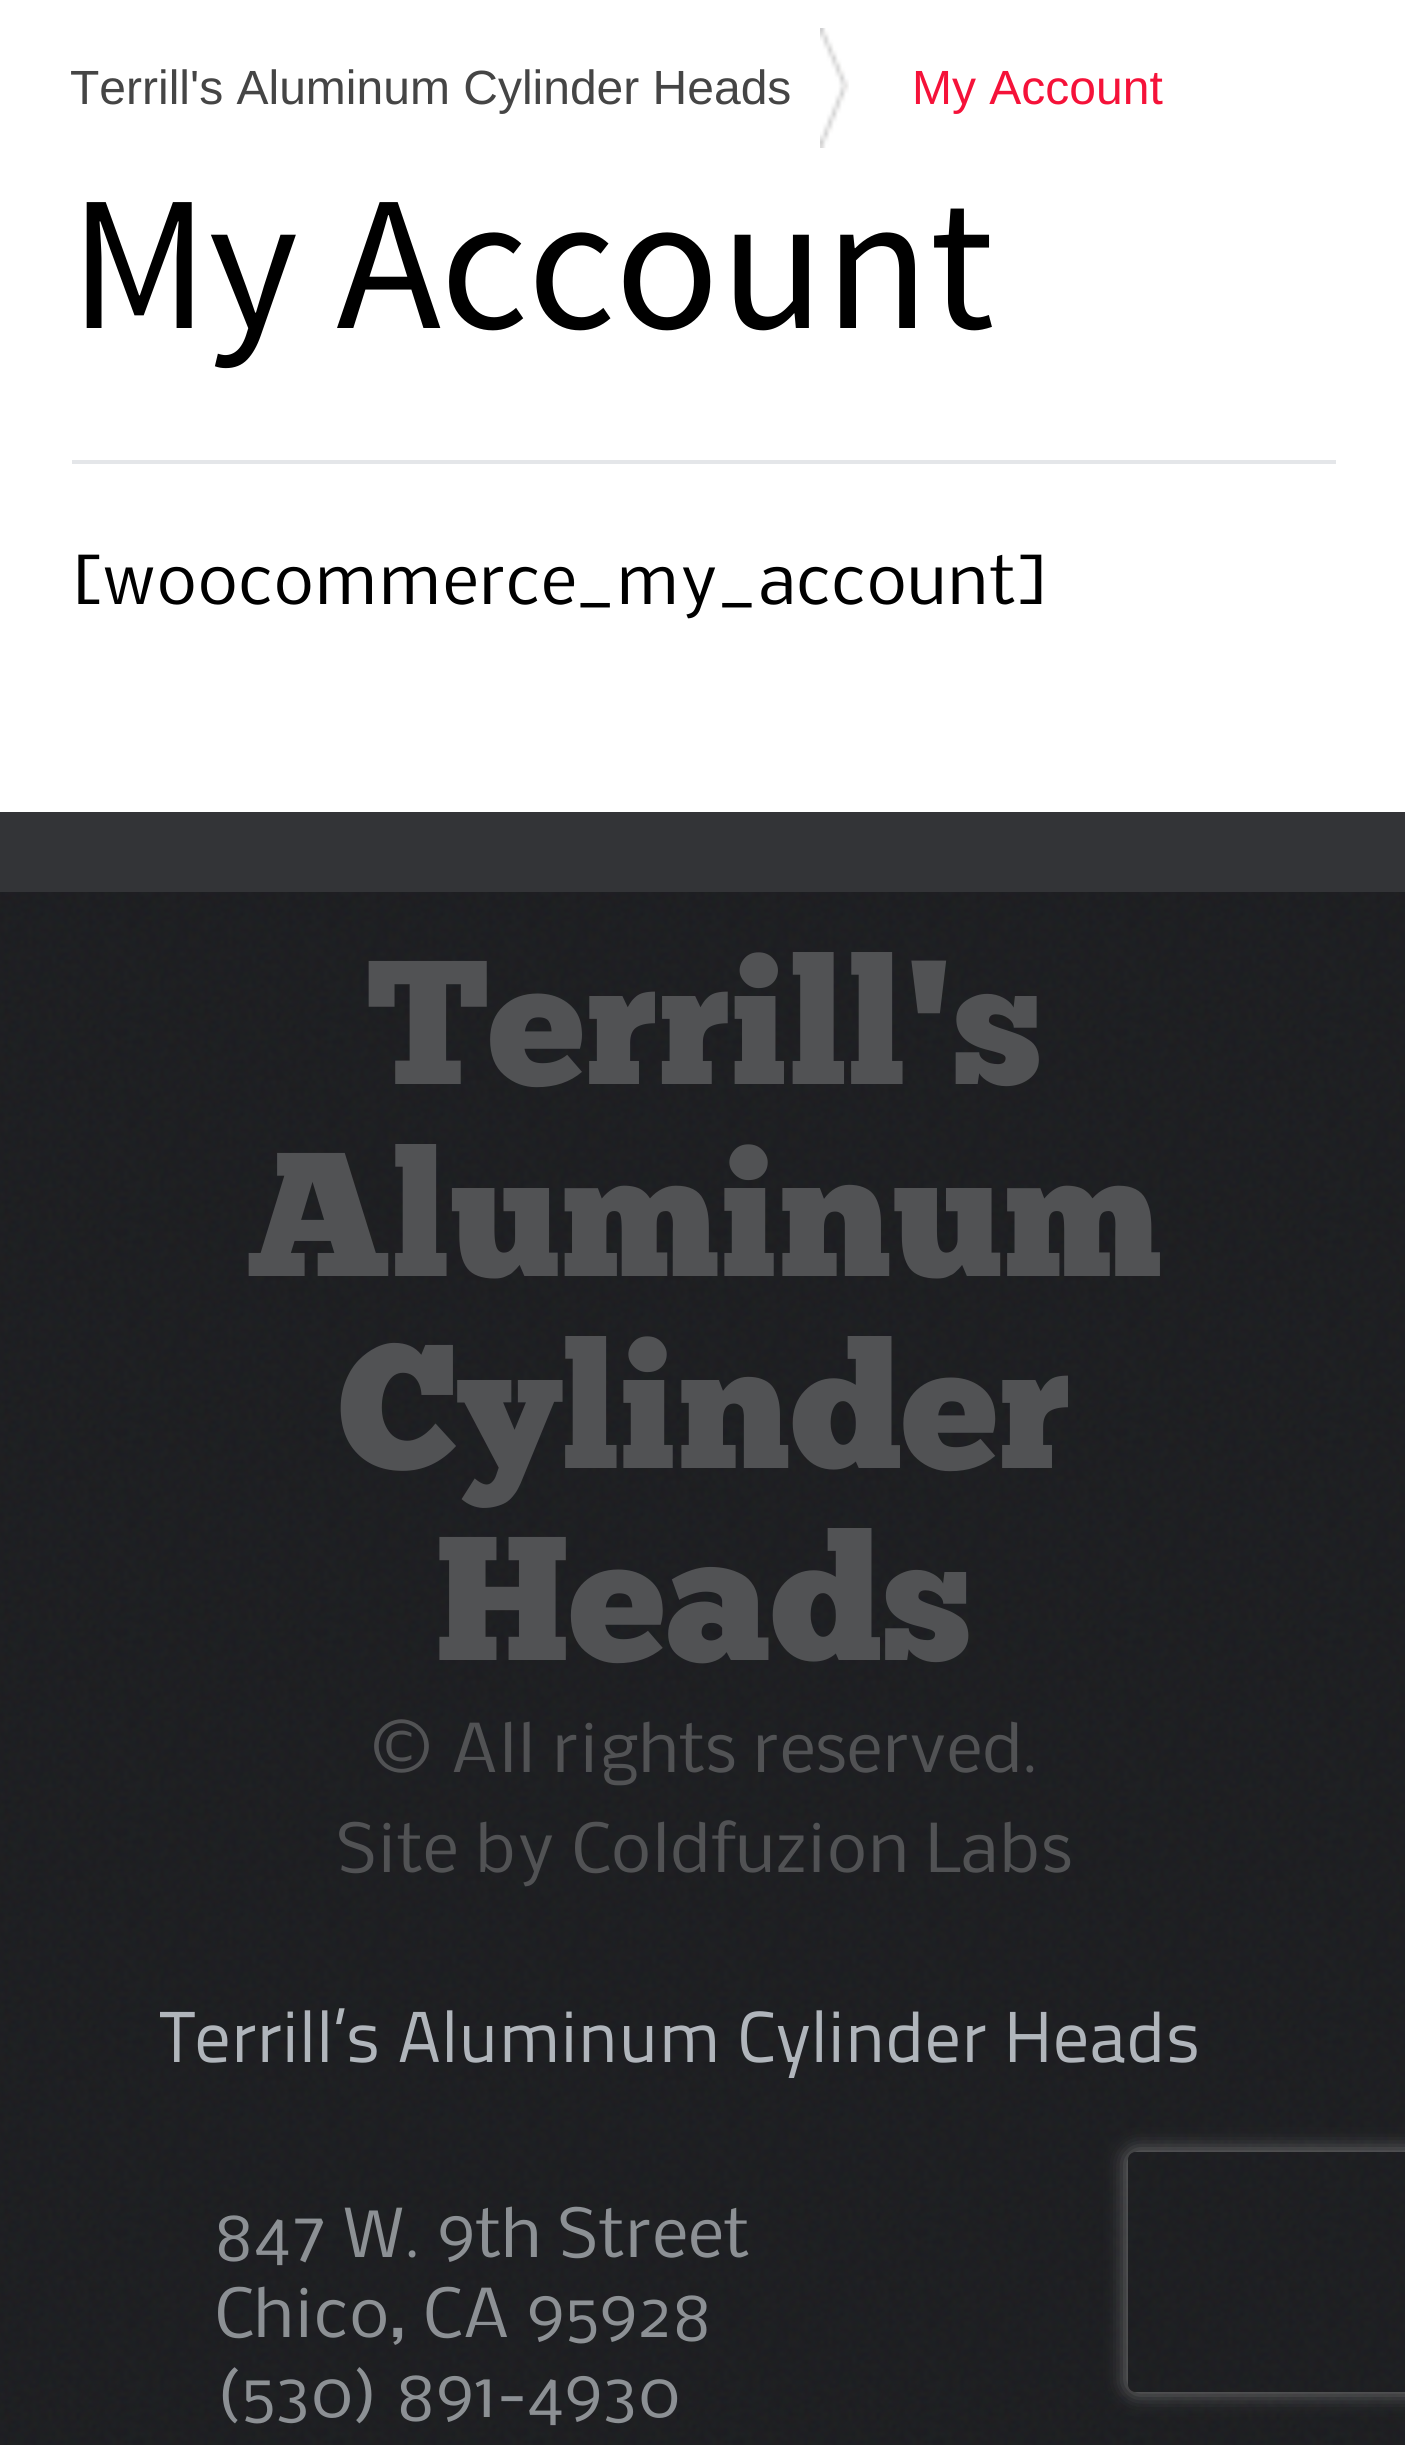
#include <cairo.h>
#include <math.h>
#include <stddef.h>

static cairo_t *ctx;

static void use_color(int r, int g, int b) {
    cairo_set_source_rgb(ctx, r / 255.0, g / 255.0, b / 255.0);
}

static void round_rect(double x, double y, double w, double h, double r) {
    cairo_new_sub_path(ctx);
    cairo_arc(ctx, x + w - r, y + h - r, r, 0, M_PI / 2);
    cairo_arc(ctx, x + r, y + h - r, r, M_PI / 2, M_PI);
    cairo_arc(ctx, x + r, y + r, r, M_PI, 1.5 * M_PI);
    cairo_arc(ctx, x + w - r, y + r, r, 1.5 * M_PI, 2 * M_PI);
    cairo_close_path(ctx);
}

static void shadow(double x, double y, double w, double h, double r, double blur, double alpha) {
    cairo_push_group_with_content(ctx, CAIRO_CONTENT_ALPHA);
    cairo_set_operator(ctx, CAIRO_OPERATOR_SOURCE);
    for (int i = 15; i >= -15 && fmin(w, h) + blur * i / 3 > 0; i -= 2) {
        double e = blur * i / 6;
        cairo_set_source_rgba(ctx, 0, 0, 0, alpha * erfc((i - 1) / 8.5) / 2);
        round_rect(x - e, y - e, w + 2 * e, h + 2 * e, fmax(0, fmin(r + e + blur * .6, fmin(w, h) / 2 + e)));
        cairo_fill(ctx);
    }
    cairo_pattern_t *soft = cairo_pop_group(ctx);
    cairo_mask(ctx, soft);
    cairo_pattern_destroy(soft);
}

static void picture(const char *path, double x, double y, double w, double h) {
    cairo_surface_t *image = cairo_image_surface_create_from_png(path);
    cairo_save(ctx);
    cairo_set_source_surface(ctx, image, x, y);
    cairo_rectangle(ctx, x, y, w, h);
    cairo_fill(ctx);
    cairo_restore(ctx);
    cairo_surface_destroy(image);
}

int main(void) {
    cairo_surface_t *surface = cairo_image_surface_create(CAIRO_FORMAT_RGB24, 1405, 2445);
    ctx = cairo_create(surface);
    cairo_font_options_t *options = cairo_font_options_create();
    cairo_font_options_set_hint_metrics(options, CAIRO_HINT_METRICS_OFF);
    cairo_font_options_set_hint_style(options, CAIRO_HINT_STYLE_NONE);
    cairo_set_font_options(ctx, options);
    cairo_set_miter_limit(ctx, 4);
    use_color(255, 255, 255);
    cairo_paint(ctx);
    picture("img1.png", 820, 28, 29, 120);
    cairo_select_font_face(ctx, "Liberation Sans", CAIRO_FONT_SLANT_NORMAL, CAIRO_FONT_WEIGHT_NORMAL);
    cairo_set_font_size(ctx, 48);
    use_color(69, 69, 69);
    cairo_move_to(ctx, 70, 104);
    cairo_show_text(ctx, "Terrill's Aluminum Cylinder Heads");
    use_color(245, 18, 57);
    cairo_move_to(ctx, 912, 104);
    cairo_show_text(ctx, "My Account");
    use_color(228, 230, 233);
    cairo_rectangle(ctx, 72, 460, 1264, 4);
    cairo_fill(ctx);
    cairo_select_font_face(ctx, "Source Sans Pro", CAIRO_FONT_SLANT_NORMAL, CAIRO_FONT_WEIGHT_NORMAL);
    cairo_set_font_size(ctx, 192);
    use_color(0, 0, 0);
    cairo_move_to(ctx, 70, 328);
    cairo_show_text(ctx, "My Account");
    cairo_select_font_face(ctx, "Nobile", CAIRO_FONT_SLANT_NORMAL, CAIRO_FONT_WEIGHT_NORMAL);
    cairo_set_font_size(ctx, 64);
    cairo_move_to(ctx, 70, 604);
    cairo_show_text(ctx, "[woocommerce_my_account]");
    use_color(51, 52, 55);
    cairo_rectangle(ctx, 0, 812, 1405, 80);
    cairo_fill(ctx);
    picture("img2.png", 0, 892, 1405, 1553);
    cairo_select_font_face(ctx, "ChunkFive", CAIRO_FONT_SLANT_NORMAL, CAIRO_FONT_WEIGHT_NORMAL);
    cairo_set_font_size(ctx, 176);
    use_color(81, 82, 84);
    cairo_move_to(ctx, 366, 1084);
    cairo_show_text(ctx, "Terrill's");
    cairo_move_to(ctx, 246, 1276);
    cairo_show_text(ctx, "Aluminum");
    cairo_move_to(ctx, 338, 1468);
    cairo_show_text(ctx, "Cylinder");
    cairo_move_to(ctx, 435, 1660);
    cairo_show_text(ctx, "Heads");
    cairo_select_font_face(ctx, "Nobile", CAIRO_FONT_SLANT_NORMAL, CAIRO_FONT_WEIGHT_NORMAL);
    cairo_set_font_size(ctx, 64);
    cairo_move_to(ctx, 369, 1772);
    cairo_show_text(ctx, "© All rights reserved.");
    cairo_move_to(ctx, 336, 1872);
    cairo_show_text(ctx, "Site by Coldfuzion Labs");
    cairo_save(ctx);
    cairo_rectangle(ctx, 160, 2008, 1088, 76);
    cairo_clip(ctx);
    cairo_select_font_face(ctx, "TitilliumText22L", CAIRO_FONT_SLANT_NORMAL, CAIRO_FONT_WEIGHT_NORMAL);
    cairo_set_font_size(ctx, 72);
    use_color(176, 181, 187);
    cairo_move_to(ctx, 159, 2062);
    cairo_show_text(ctx, "Terrill’s Aluminum Cylinder Heads");
    cairo_restore(ctx);
    use_color(140, 144, 148);
    cairo_move_to(ctx, 214, 2257);
    cairo_show_text(ctx, "847 W. 9th Street");
    cairo_move_to(ctx, 214, 2337);
    cairo_show_text(ctx, "Chico, CA 95928");
    cairo_move_to(ctx, 214, 2417);
    cairo_show_text(ctx, "(530) 891-4930");
    cairo_save(ctx);
    cairo_set_fill_rule(ctx, CAIRO_FILL_RULE_EVEN_ODD);
    cairo_new_path(ctx);
    cairo_move_to(ctx, 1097, 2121);
    cairo_line_to(ctx, 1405, 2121);
    cairo_line_to(ctx, 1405, 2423);
    cairo_line_to(ctx, 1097, 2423);
    cairo_close_path(ctx);
    cairo_move_to(ctx, 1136, 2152);
    cairo_line_to(ctx, 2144, 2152);
    cairo_curve_to(ctx, 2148.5, 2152, 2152, 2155.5, 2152, 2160);
    cairo_line_to(ctx, 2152, 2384);
    cairo_curve_to(ctx, 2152, 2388.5, 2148.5, 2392, 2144, 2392);
    cairo_line_to(ctx, 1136, 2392);
    cairo_curve_to(ctx, 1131.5, 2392, 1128, 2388.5, 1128, 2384);
    cairo_line_to(ctx, 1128, 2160);
    cairo_curve_to(ctx, 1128, 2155.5, 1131.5, 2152, 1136, 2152);
    cairo_close_path(ctx);
    cairo_clip(ctx);
    use_color(128, 128, 128);
    shadow(1128, 2152, 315, 240, 8, 10, 1);
    cairo_restore(ctx);
    cairo_surface_write_to_png(surface, "result.png");
    cairo_font_options_destroy(options);
    cairo_destroy(ctx);
    cairo_surface_destroy(surface);
    return 0;
}
